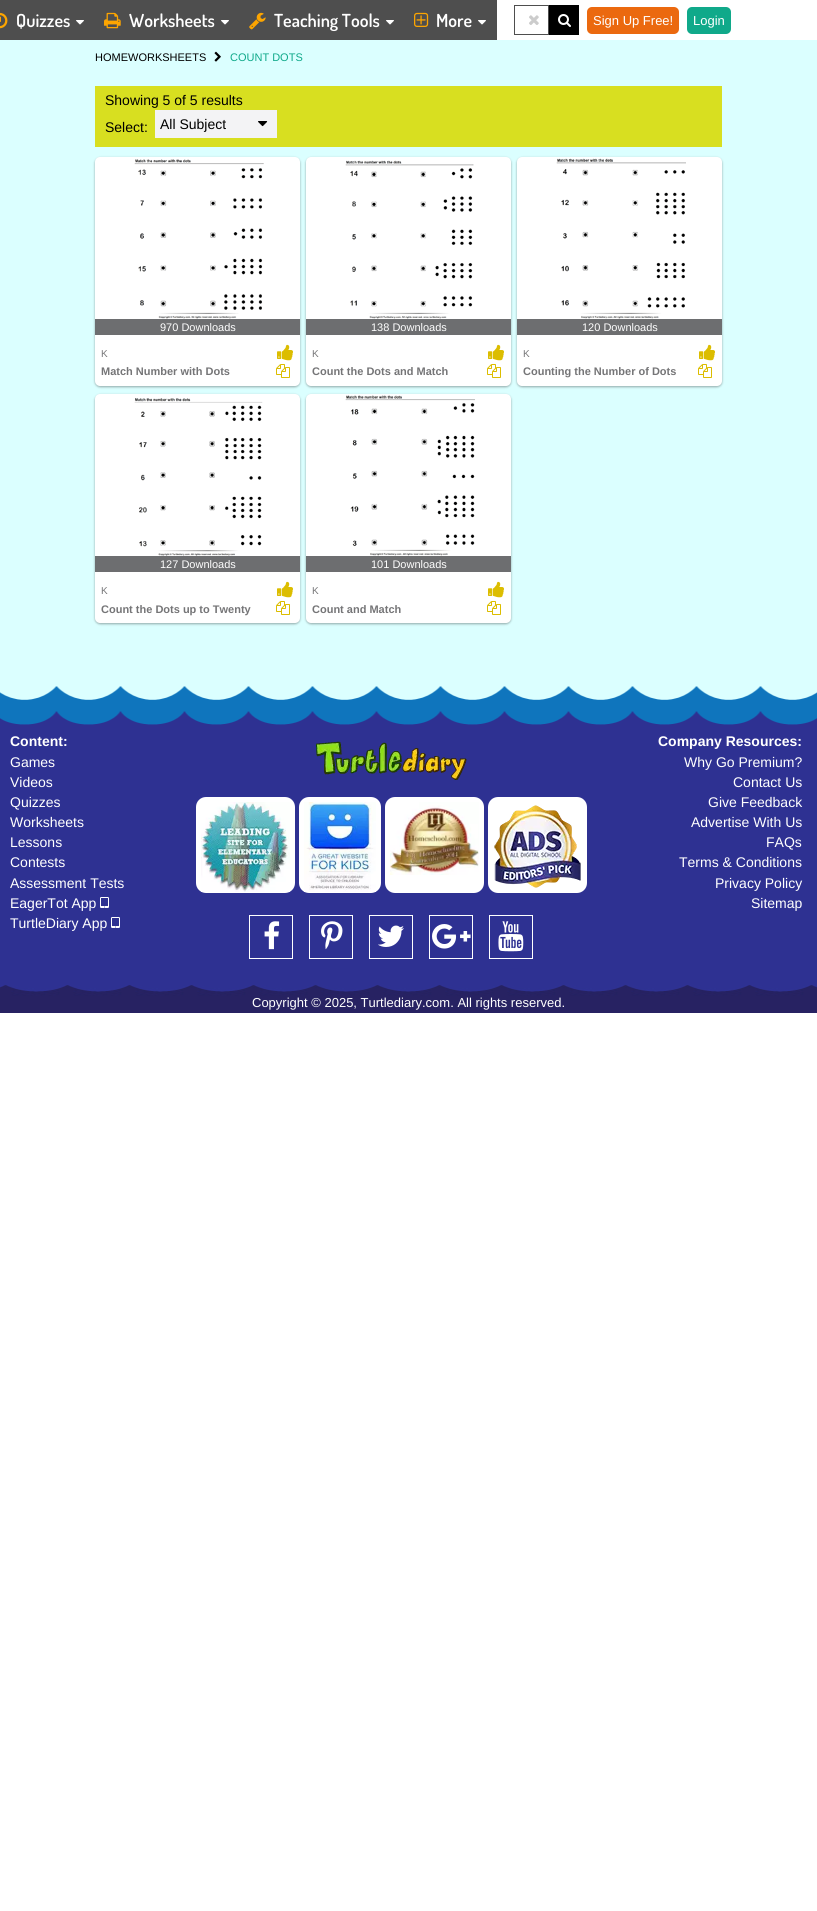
#include <cairo.h>
#include <math.h>
#include <stddef.h>

static cairo_t *ctx;

static void use_color(int r, int g, int b) {
    cairo_set_source_rgb(ctx, r / 255.0, g / 255.0, b / 255.0);
}

static void round_rect(double x, double y, double w, double h, double r) {
    cairo_new_sub_path(ctx);
    cairo_arc(ctx, x + w - r, y + h - r, r, 0, M_PI / 2);
    cairo_arc(ctx, x + r, y + h - r, r, M_PI / 2, M_PI);
    cairo_arc(ctx, x + r, y + r, r, M_PI, 1.5 * M_PI);
    cairo_arc(ctx, x + w - r, y + r, r, 1.5 * M_PI, 2 * M_PI);
    cairo_close_path(ctx);
}

static void shadow(double x, double y, double w, double h, double r, double blur, double alpha) {
    cairo_push_group_with_content(ctx, CAIRO_CONTENT_ALPHA);
    cairo_set_operator(ctx, CAIRO_OPERATOR_SOURCE);
    for (int i = 15; i >= -15 && fmin(w, h) + blur * i / 3 > 0; i -= 2) {
        double e = blur * i / 6;
        cairo_set_source_rgba(ctx, 0, 0, 0, alpha * erfc((i - 1) / 8.5) / 2);
        round_rect(x - e, y - e, w + 2 * e, h + 2 * e, fmax(0, fmin(r + e + blur * .6, fmin(w, h) / 2 + e)));
        cairo_fill(ctx);
    }
    cairo_pattern_t *soft = cairo_pop_group(ctx);
    cairo_mask(ctx, soft);
    cairo_pattern_destroy(soft);
}

static void picture(const char *path, double x, double y, double w, double h) {
    cairo_surface_t *image = cairo_image_surface_create_from_png(path);
    cairo_save(ctx);
    cairo_set_source_surface(ctx, image, x, y);
    cairo_rectangle(ctx, x, y, w, h);
    cairo_fill(ctx);
    cairo_restore(ctx);
    cairo_surface_destroy(image);
}

int main(void) {
    cairo_surface_t *surface = cairo_image_surface_create(CAIRO_FORMAT_RGB24, 817, 1911);
    ctx = cairo_create(surface);
    cairo_font_options_t *options = cairo_font_options_create();
    cairo_font_options_set_hint_metrics(options, CAIRO_HINT_METRICS_OFF);
    cairo_font_options_set_hint_style(options, CAIRO_HINT_STYLE_NONE);
    cairo_set_font_options(ctx, options);
    cairo_set_miter_limit(ctx, 4);
    use_color(255, 255, 255);
    cairo_paint(ctx);
    use_color(78, 78, 78);
    cairo_rectangle(ctx, 0, 0, 497, 40);
    cairo_fill(ctx);
    picture("img1.png", 0, 12, 8, 17);
    cairo_select_font_face(ctx, "Dosis SemiBold", CAIRO_FONT_SLANT_NORMAL, CAIRO_FONT_WEIGHT_NORMAL);
    cairo_set_font_size(ctx, 18);
    use_color(255, 255, 255);
    cairo_move_to(ctx, 16, 27);
    cairo_show_text(ctx, "Quizzes");
    picture("img2.png", 76, 20, 8, 5);
    picture("img3.png", 104, 12, 17, 17);
    cairo_move_to(ctx, 129, 27);
    cairo_show_text(ctx, "Worksheets");
    picture("img2.png", 221, 20, 8, 5);
    picture("img4.png", 249, 12, 17, 18);
    cairo_move_to(ctx, 274, 27);
    cairo_show_text(ctx, "Teaching Tools");
    picture("img2.png", 386, 20, 8, 5);
    picture("img5.png", 414, 12, 15, 15);
    cairo_move_to(ctx, 436, 27);
    cairo_show_text(ctx, "More");
    picture("img2.png", 478, 20, 8, 5);
    cairo_rectangle(ctx, 514.5, 5.5, 34, 29);
    use_color(78, 78, 78);
    cairo_set_line_width(ctx, 1);
    cairo_stroke(ctx);
    picture("img6.png", 529, 15, 10, 10);
    use_color(0, 0, 0);
    cairo_rectangle(ctx, 549, 5, 30, 30);
    cairo_fill(ctx);
    picture("img7.png", 558, 14, 13, 13);
    use_color(235, 105, 15);
    round_rect(587, 7, 92, 27, 5);
    cairo_fill(ctx);
    cairo_select_font_face(ctx, "Liberation Sans", CAIRO_FONT_SLANT_NORMAL, CAIRO_FONT_WEIGHT_NORMAL);
    cairo_set_font_size(ctx, 13);
    use_color(255, 255, 255);
    cairo_move_to(ctx, 593, 25);
    cairo_show_text(ctx, "Sign Up Free!");
    use_color(16, 169, 138);
    round_rect(687, 7, 44, 27, 5);
    cairo_fill(ctx);
    use_color(255, 255, 255);
    cairo_move_to(ctx, 693, 25);
    cairo_show_text(ctx, "Login");
    use_color(219, 255, 255);
    cairo_rectangle(ctx, 0, 40, 817, 660);
    cairo_fill(ctx);
    cairo_set_font_size(ctx, 11);
    use_color(0, 0, 0);
    cairo_move_to(ctx, 95, 61);
    cairo_show_text(ctx, "HOMEWORKSHEETS");
    picture("img8.png", 214, 51, 7, 11);
    use_color(16, 169, 138);
    cairo_move_to(ctx, 230, 61);
    cairo_show_text(ctx, "COUNT DOTS");
    use_color(216, 223, 32);
    cairo_rectangle(ctx, 95, 86, 627, 61);
    cairo_fill(ctx);
    cairo_set_font_size(ctx, 14);
    use_color(0, 0, 0);
    cairo_move_to(ctx, 105, 105);
    cairo_show_text(ctx, "Showing 5 of 5 results");
    cairo_move_to(ctx, 105, 132);
    cairo_show_text(ctx, "Select:");
    use_color(243, 243, 245);
    cairo_rectangle(ctx, 155, 110, 122, 28);
    cairo_fill(ctx);
    use_color(0, 0, 0);
    cairo_move_to(ctx, 160, 129);
    cairo_show_text(ctx, "All Subject");
    picture("img9.png", 258, 121, 10, 6);
    use_color(0, 0, 0);
    shadow(95, 158, 205, 229, 5, 1, 0.24);
    shadow(95, 158, 205, 229, 5, 1.5, 0.12);
    use_color(255, 255, 255);
    round_rect(95, 157, 205, 229, 5);
    cairo_fill(ctx);
    picture("img10.png", 134, 159, 130, 160);
    use_color(109, 110, 112);
    cairo_rectangle(ctx, 95, 319, 205, 16);
    cairo_fill(ctx);
    cairo_set_font_size(ctx, 11);
    use_color(255, 255, 255);
    cairo_move_to(ctx, 160, 331);
    cairo_show_text(ctx, "970 Downloads");
    cairo_set_font_size(ctx, 10);
    use_color(117, 117, 119);
    cairo_move_to(ctx, 101, 357);
    cairo_show_text(ctx, "K");
    picture("img11.png", 277, 344, 16, 17);
    cairo_select_font_face(ctx, "Liberation Sans", CAIRO_FONT_SLANT_NORMAL, CAIRO_FONT_WEIGHT_BOLD);
    cairo_set_font_size(ctx, 11);
    cairo_move_to(ctx, 101, 375);
    cairo_show_text(ctx, "Match Number with Dots");
    picture("img12.png", 276, 364, 14, 14);
    use_color(0, 0, 0);
    shadow(306, 158, 205, 229, 5, 1, 0.24);
    shadow(306, 158, 205, 229, 5, 1.5, 0.12);
    use_color(255, 255, 255);
    round_rect(306, 157, 205, 229, 5);
    cairo_fill(ctx);
    picture("img13.png", 345, 160, 129, 159);
    use_color(109, 110, 112);
    cairo_rectangle(ctx, 306, 319, 205, 16);
    cairo_fill(ctx);
    cairo_select_font_face(ctx, "Liberation Sans", CAIRO_FONT_SLANT_NORMAL, CAIRO_FONT_WEIGHT_NORMAL);
    use_color(255, 255, 255);
    cairo_move_to(ctx, 371, 331);
    cairo_show_text(ctx, "138 Downloads");
    cairo_set_font_size(ctx, 10);
    use_color(117, 117, 119);
    cairo_move_to(ctx, 312, 357);
    cairo_show_text(ctx, "K");
    picture("img11.png", 488, 344, 16, 17);
    cairo_select_font_face(ctx, "Liberation Sans", CAIRO_FONT_SLANT_NORMAL, CAIRO_FONT_WEIGHT_BOLD);
    cairo_set_font_size(ctx, 11);
    cairo_move_to(ctx, 312, 375);
    cairo_show_text(ctx, "Count the Dots and Match");
    picture("img12.png", 487, 364, 14, 14);
    use_color(0, 0, 0);
    shadow(517, 158, 205, 229, 5, 1, 0.24);
    shadow(517, 158, 205, 229, 5, 1.5, 0.12);
    use_color(255, 255, 255);
    round_rect(517, 157, 205, 229, 5);
    cairo_fill(ctx);
    picture("img14.png", 556, 158, 130, 161);
    use_color(109, 110, 112);
    cairo_rectangle(ctx, 517, 319, 205, 16);
    cairo_fill(ctx);
    cairo_select_font_face(ctx, "Liberation Sans", CAIRO_FONT_SLANT_NORMAL, CAIRO_FONT_WEIGHT_NORMAL);
    use_color(255, 255, 255);
    cairo_move_to(ctx, 582, 331);
    cairo_show_text(ctx, "120 Downloads");
    cairo_set_font_size(ctx, 10);
    use_color(117, 117, 119);
    cairo_move_to(ctx, 523, 357);
    cairo_show_text(ctx, "K");
    picture("img11.png", 699, 344, 16, 17);
    cairo_select_font_face(ctx, "Liberation Sans", CAIRO_FONT_SLANT_NORMAL, CAIRO_FONT_WEIGHT_BOLD);
    cairo_set_font_size(ctx, 11);
    cairo_move_to(ctx, 523, 375);
    cairo_show_text(ctx, "Counting the Number of Dots");
    picture("img12.png", 698, 364, 14, 14);
    use_color(0, 0, 0);
    shadow(95, 395, 205, 229, 5, 1, 0.24);
    shadow(95, 395, 205, 229, 5, 1.5, 0.12);
    use_color(255, 255, 255);
    round_rect(95, 394, 205, 229, 5);
    cairo_fill(ctx);
    picture("img15.png", 134, 398, 129, 158);
    use_color(109, 110, 112);
    cairo_rectangle(ctx, 95, 556, 205, 16);
    cairo_fill(ctx);
    cairo_select_font_face(ctx, "Liberation Sans", CAIRO_FONT_SLANT_NORMAL, CAIRO_FONT_WEIGHT_NORMAL);
    use_color(255, 255, 255);
    cairo_move_to(ctx, 160, 568);
    cairo_show_text(ctx, "127 Downloads");
    cairo_set_font_size(ctx, 10);
    use_color(117, 117, 119);
    cairo_move_to(ctx, 101, 594);
    cairo_show_text(ctx, "K");
    picture("img11.png", 277, 581, 16, 17);
    cairo_select_font_face(ctx, "Liberation Sans", CAIRO_FONT_SLANT_NORMAL, CAIRO_FONT_WEIGHT_BOLD);
    cairo_set_font_size(ctx, 11);
    cairo_move_to(ctx, 101, 613);
    cairo_show_text(ctx, "Count the Dots up to Twenty");
    picture("img12.png", 276, 601, 14, 14);
    use_color(0, 0, 0);
    shadow(306, 395, 205, 229, 5, 1, 0.24);
    shadow(306, 395, 205, 229, 5, 1.5, 0.12);
    use_color(255, 255, 255);
    round_rect(306, 394, 205, 229, 5);
    cairo_fill(ctx);
    picture("img16.png", 345, 395, 130, 161);
    use_color(109, 110, 112);
    cairo_rectangle(ctx, 306, 556, 205, 16);
    cairo_fill(ctx);
    cairo_select_font_face(ctx, "Liberation Sans", CAIRO_FONT_SLANT_NORMAL, CAIRO_FONT_WEIGHT_NORMAL);
    use_color(255, 255, 255);
    cairo_move_to(ctx, 371, 568);
    cairo_show_text(ctx, "101 Downloads");
    cairo_set_font_size(ctx, 10);
    use_color(117, 117, 119);
    cairo_move_to(ctx, 312, 594);
    cairo_show_text(ctx, "K");
    picture("img11.png", 488, 581, 16, 17);
    cairo_select_font_face(ctx, "Liberation Sans", CAIRO_FONT_SLANT_NORMAL, CAIRO_FONT_WEIGHT_BOLD);
    cairo_set_font_size(ctx, 11);
    cairo_move_to(ctx, 312, 613);
    cairo_show_text(ctx, "Count and Match");
    picture("img12.png", 487, 601, 14, 14);
    use_color(46, 49, 146);
    cairo_rectangle(ctx, 0, 711, 817, 274);
    cairo_fill(ctx);
    picture("img17.png", 0, 985, 817, 28);
    picture("img18.png", 0, 686, 817, 39);
    cairo_set_font_size(ctx, 14);
    use_color(255, 255, 255);
    cairo_move_to(ctx, 10, 746);
    cairo_show_text(ctx, "Content:");
    cairo_select_font_face(ctx, "Liberation Sans", CAIRO_FONT_SLANT_NORMAL, CAIRO_FONT_WEIGHT_NORMAL);
    cairo_move_to(ctx, 10, 767);
    cairo_show_text(ctx, "Games");
    cairo_move_to(ctx, 10, 787);
    cairo_show_text(ctx, "Videos");
    cairo_move_to(ctx, 10, 807);
    cairo_show_text(ctx, "Quizzes");
    cairo_move_to(ctx, 10, 827);
    cairo_show_text(ctx, "Worksheets");
    cairo_move_to(ctx, 10, 847);
    cairo_show_text(ctx, "Lessons");
    cairo_move_to(ctx, 10, 867);
    cairo_show_text(ctx, "Contests");
    cairo_move_to(ctx, 10, 888);
    cairo_show_text(ctx, "Assessment Tests");
    cairo_move_to(ctx, 10, 908);
    cairo_show_text(ctx, "EagerTot App");
    picture("img19.png", 100, 897, 9, 11);
    cairo_move_to(ctx, 10, 928);
    cairo_show_text(ctx, "TurtleDiary App");
    picture("img19.png", 111, 917, 9, 11);
    picture("img20.png", 316, 741, 151, 39);
    round_rect(196, 797, 99, 96, 10);
    cairo_fill(ctx);
    picture("img21.png", 201, 802, 89, 90);
    round_rect(299, 797, 82, 96, 10);
    cairo_fill(ctx);
    picture("img22.png", 304, 802, 72, 90);
    round_rect(385, 797, 99, 96, 10);
    cairo_fill(ctx);
    picture("img23.png", 390, 802, 89, 73);
    round_rect(488, 797, 99, 96, 10);
    cairo_fill(ctx);
    picture("img24.png", 494, 805, 87, 83);
    cairo_rectangle(ctx, 249.5, 915.5, 43, 43);
    cairo_stroke(ctx);
    picture("img25.png", 264, 921, 16, 29);
    cairo_rectangle(ctx, 309.5, 915.5, 43, 43);
    cairo_stroke(ctx);
    picture("img26.png", 321, 921, 22, 29);
    cairo_rectangle(ctx, 369.5, 915.5, 43, 43);
    cairo_stroke(ctx);
    picture("img27.png", 378, 925, 26, 22);
    cairo_rectangle(ctx, 429.5, 915.5, 43, 43);
    cairo_stroke(ctx);
    picture("img28.png", 432, 924, 39, 25);
    cairo_rectangle(ctx, 489.5, 915.5, 43, 43);
    cairo_stroke(ctx);
    picture("img29.png", 498, 921, 26, 31);
    cairo_select_font_face(ctx, "Liberation Sans", CAIRO_FONT_SLANT_NORMAL, CAIRO_FONT_WEIGHT_BOLD);
    cairo_move_to(ctx, 658, 746);
    cairo_show_text(ctx, "Company Resources:");
    cairo_select_font_face(ctx, "Liberation Sans", CAIRO_FONT_SLANT_NORMAL, CAIRO_FONT_WEIGHT_NORMAL);
    cairo_move_to(ctx, 684, 767);
    cairo_show_text(ctx, "Why Go Premium?");
    cairo_move_to(ctx, 733, 787);
    cairo_show_text(ctx, "Contact Us");
    cairo_move_to(ctx, 708, 807);
    cairo_show_text(ctx, "Give Feedback");
    cairo_move_to(ctx, 691, 827);
    cairo_show_text(ctx, "Advertise With Us");
    cairo_move_to(ctx, 766, 847);
    cairo_show_text(ctx, "FAQs");
    cairo_move_to(ctx, 679, 867);
    cairo_show_text(ctx, "Terms & Conditions");
    cairo_move_to(ctx, 715, 888);
    cairo_show_text(ctx, "Privacy Policy");
    cairo_move_to(ctx, 751, 908);
    cairo_show_text(ctx, "Sitemap");
    cairo_set_font_size(ctx, 13);
    cairo_move_to(ctx, 252, 1007);
    cairo_show_text(ctx, "Copyright © 2025, Turtlediary.com. All rights reserved.");
    cairo_surface_write_to_png(surface, "result.png");
    cairo_font_options_destroy(options);
    cairo_destroy(ctx);
    cairo_surface_destroy(surface);
    return 0;
}
